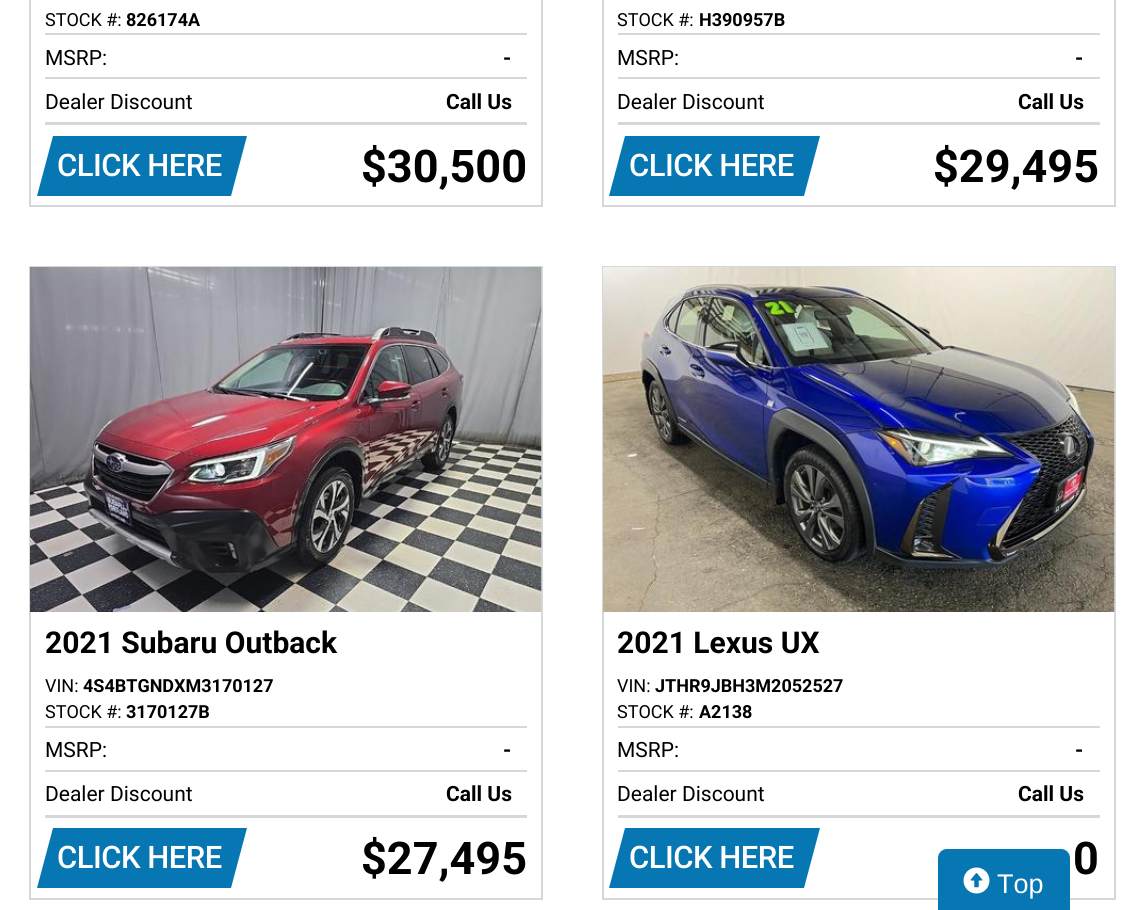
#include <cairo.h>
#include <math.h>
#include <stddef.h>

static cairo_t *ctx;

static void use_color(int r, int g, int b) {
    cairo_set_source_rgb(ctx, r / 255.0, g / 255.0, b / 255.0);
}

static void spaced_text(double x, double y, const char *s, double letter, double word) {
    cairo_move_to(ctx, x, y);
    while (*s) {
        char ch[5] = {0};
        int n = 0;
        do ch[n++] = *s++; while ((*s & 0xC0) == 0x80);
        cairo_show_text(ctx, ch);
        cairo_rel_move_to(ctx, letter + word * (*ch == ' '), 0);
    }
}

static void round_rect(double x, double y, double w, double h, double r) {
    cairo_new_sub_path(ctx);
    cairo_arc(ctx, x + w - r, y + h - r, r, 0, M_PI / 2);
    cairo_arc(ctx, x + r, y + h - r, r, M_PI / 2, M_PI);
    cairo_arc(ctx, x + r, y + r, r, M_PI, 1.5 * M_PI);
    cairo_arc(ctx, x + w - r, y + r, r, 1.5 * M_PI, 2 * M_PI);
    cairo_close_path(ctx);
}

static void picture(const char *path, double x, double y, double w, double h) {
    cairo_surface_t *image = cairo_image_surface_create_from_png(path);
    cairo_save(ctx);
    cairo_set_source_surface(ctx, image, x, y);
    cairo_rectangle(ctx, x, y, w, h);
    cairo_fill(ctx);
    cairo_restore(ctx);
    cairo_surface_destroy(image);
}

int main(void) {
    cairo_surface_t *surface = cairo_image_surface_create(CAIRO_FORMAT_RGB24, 1144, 910);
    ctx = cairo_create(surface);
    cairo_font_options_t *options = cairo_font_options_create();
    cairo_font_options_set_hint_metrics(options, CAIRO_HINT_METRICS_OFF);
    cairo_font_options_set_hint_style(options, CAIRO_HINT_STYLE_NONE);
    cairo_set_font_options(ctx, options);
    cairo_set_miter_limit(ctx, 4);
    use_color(255, 255, 255);
    cairo_paint(ctx);
    cairo_rectangle(ctx, 30, -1, 512, 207);
    use_color(212, 216, 217);
    cairo_stroke(ctx);
    cairo_select_font_face(ctx, "Roboto", CAIRO_FONT_SLANT_NORMAL, CAIRO_FONT_WEIGHT_NORMAL);
    cairo_set_font_size(ctx, 18);
    use_color(0, 0, 0);
    cairo_move_to(ctx, 45, 26);
    cairo_show_text(ctx, "STOCK #:");
    cairo_select_font_face(ctx, "Roboto", CAIRO_FONT_SLANT_NORMAL, CAIRO_FONT_WEIGHT_BOLD);
    cairo_move_to(ctx, 126, 26);
    cairo_show_text(ctx, "826174A");
    use_color(212, 216, 217);
    cairo_rectangle(ctx, 45, 33, 482, 2);
    cairo_fill(ctx);
    cairo_rectangle(ctx, 45, 77, 482, 2);
    cairo_fill(ctx);
    cairo_select_font_face(ctx, "Roboto", CAIRO_FONT_SLANT_NORMAL, CAIRO_FONT_WEIGHT_NORMAL);
    cairo_set_font_size(ctx, 21);
    use_color(0, 0, 0);
    cairo_move_to(ctx, 45, 65);
    cairo_show_text(ctx, "MSRP:");
    cairo_select_font_face(ctx, "Roboto", CAIRO_FONT_SLANT_NORMAL, CAIRO_FONT_WEIGHT_BOLD);
    cairo_move_to(ctx, 503, 65);
    cairo_show_text(ctx, "-");
    use_color(212, 216, 217);
    cairo_rectangle(ctx, 45, 122, 482, 3);
    cairo_fill(ctx);
    cairo_select_font_face(ctx, "Roboto", CAIRO_FONT_SLANT_NORMAL, CAIRO_FONT_WEIGHT_NORMAL);
    use_color(0, 0, 0);
    cairo_move_to(ctx, 45, 109);
    cairo_show_text(ctx, "Dealer Discount");
    cairo_select_font_face(ctx, "Roboto", CAIRO_FONT_SLANT_NORMAL, CAIRO_FONT_WEIGHT_BOLD);
    cairo_move_to(ctx, 446, 109);
    cairo_show_text(ctx, "Call Us");
    use_color(7, 119, 179);
    cairo_new_path(ctx);
    cairo_move_to(ctx, 53, 136);
    cairo_line_to(ctx, 247, 136);
    cairo_line_to(ctx, 231, 196);
    cairo_line_to(ctx, 37, 196);
    cairo_close_path(ctx);
    cairo_fill(ctx);
    cairo_select_font_face(ctx, "Roboto Medium", CAIRO_FONT_SLANT_NORMAL, CAIRO_FONT_WEIGHT_NORMAL);
    cairo_set_font_size(ctx, 31);
    use_color(255, 255, 255);
    spaced_text(57, 176, "CLICK HERE", -0.5, 0);
    cairo_select_font_face(ctx, "Roboto", CAIRO_FONT_SLANT_NORMAL, CAIRO_FONT_WEIGHT_BOLD);
    cairo_set_font_size(ctx, 45);
    use_color(0, 0, 0);
    cairo_move_to(ctx, 361, 182);
    cairo_show_text(ctx, "$30,500");
    cairo_rectangle(ctx, 603, -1, 512, 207);
    use_color(212, 216, 217);
    cairo_stroke(ctx);
    cairo_select_font_face(ctx, "Roboto", CAIRO_FONT_SLANT_NORMAL, CAIRO_FONT_WEIGHT_NORMAL);
    cairo_set_font_size(ctx, 18);
    use_color(0, 0, 0);
    cairo_move_to(ctx, 617, 26);
    cairo_show_text(ctx, "STOCK #:");
    cairo_select_font_face(ctx, "Roboto", CAIRO_FONT_SLANT_NORMAL, CAIRO_FONT_WEIGHT_BOLD);
    cairo_move_to(ctx, 699, 26);
    cairo_show_text(ctx, "H390957B");
    use_color(212, 216, 217);
    cairo_rectangle(ctx, 618, 33, 482, 2);
    cairo_fill(ctx);
    cairo_rectangle(ctx, 618, 77, 482, 2);
    cairo_fill(ctx);
    cairo_select_font_face(ctx, "Roboto", CAIRO_FONT_SLANT_NORMAL, CAIRO_FONT_WEIGHT_NORMAL);
    cairo_set_font_size(ctx, 21);
    use_color(0, 0, 0);
    cairo_move_to(ctx, 617, 65);
    cairo_show_text(ctx, "MSRP:");
    cairo_select_font_face(ctx, "Roboto", CAIRO_FONT_SLANT_NORMAL, CAIRO_FONT_WEIGHT_BOLD);
    cairo_move_to(ctx, 1075, 65);
    cairo_show_text(ctx, "-");
    use_color(212, 216, 217);
    cairo_rectangle(ctx, 618, 122, 482, 3);
    cairo_fill(ctx);
    cairo_select_font_face(ctx, "Roboto", CAIRO_FONT_SLANT_NORMAL, CAIRO_FONT_WEIGHT_NORMAL);
    use_color(0, 0, 0);
    cairo_move_to(ctx, 617, 109);
    cairo_show_text(ctx, "Dealer Discount");
    cairo_select_font_face(ctx, "Roboto", CAIRO_FONT_SLANT_NORMAL, CAIRO_FONT_WEIGHT_BOLD);
    cairo_move_to(ctx, 1018, 109);
    cairo_show_text(ctx, "Call Us");
    use_color(7, 119, 179);
    cairo_new_path(ctx);
    cairo_move_to(ctx, 625, 136);
    cairo_line_to(ctx, 820, 136);
    cairo_line_to(ctx, 804, 196);
    cairo_line_to(ctx, 609, 196);
    cairo_close_path(ctx);
    cairo_fill(ctx);
    cairo_select_font_face(ctx, "Roboto Medium", CAIRO_FONT_SLANT_NORMAL, CAIRO_FONT_WEIGHT_NORMAL);
    cairo_set_font_size(ctx, 31);
    use_color(255, 255, 255);
    spaced_text(629, 176, "CLICK HERE", -0.5, 0);
    cairo_select_font_face(ctx, "Roboto", CAIRO_FONT_SLANT_NORMAL, CAIRO_FONT_WEIGHT_BOLD);
    cairo_set_font_size(ctx, 45);
    use_color(0, 0, 0);
    cairo_move_to(ctx, 933, 182);
    cairo_show_text(ctx, "$29,495");
    cairo_rectangle(ctx, 30, 267, 512, 632);
    use_color(212, 216, 217);
    cairo_stroke(ctx);
    picture("img1.png", 30, 267, 512, 345);
    cairo_set_font_size(ctx, 30);
    use_color(0, 0, 0);
    cairo_move_to(ctx, 45, 653);
    cairo_show_text(ctx, "2021 Subaru Outback");
    cairo_select_font_face(ctx, "Roboto", CAIRO_FONT_SLANT_NORMAL, CAIRO_FONT_WEIGHT_NORMAL);
    cairo_set_font_size(ctx, 18);
    cairo_move_to(ctx, 45, 692);
    cairo_show_text(ctx, "VIN:");
    cairo_select_font_face(ctx, "Roboto", CAIRO_FONT_SLANT_NORMAL, CAIRO_FONT_WEIGHT_BOLD);
    cairo_move_to(ctx, 83, 692);
    cairo_show_text(ctx, "4S4BTGNDXM3170127");
    cairo_select_font_face(ctx, "Roboto", CAIRO_FONT_SLANT_NORMAL, CAIRO_FONT_WEIGHT_NORMAL);
    cairo_move_to(ctx, 45, 718);
    cairo_show_text(ctx, "STOCK #:");
    cairo_select_font_face(ctx, "Roboto", CAIRO_FONT_SLANT_NORMAL, CAIRO_FONT_WEIGHT_BOLD);
    cairo_move_to(ctx, 126, 718);
    cairo_show_text(ctx, "3170127B");
    use_color(212, 216, 217);
    cairo_rectangle(ctx, 45, 726, 482, 2);
    cairo_fill(ctx);
    cairo_rectangle(ctx, 45, 770, 482, 2);
    cairo_fill(ctx);
    cairo_select_font_face(ctx, "Roboto", CAIRO_FONT_SLANT_NORMAL, CAIRO_FONT_WEIGHT_NORMAL);
    cairo_set_font_size(ctx, 21);
    use_color(0, 0, 0);
    cairo_move_to(ctx, 45, 757);
    cairo_show_text(ctx, "MSRP:");
    cairo_select_font_face(ctx, "Roboto", CAIRO_FONT_SLANT_NORMAL, CAIRO_FONT_WEIGHT_BOLD);
    cairo_move_to(ctx, 503, 757);
    cairo_show_text(ctx, "-");
    use_color(212, 216, 217);
    cairo_rectangle(ctx, 45, 815, 482, 3);
    cairo_fill(ctx);
    cairo_select_font_face(ctx, "Roboto", CAIRO_FONT_SLANT_NORMAL, CAIRO_FONT_WEIGHT_NORMAL);
    use_color(0, 0, 0);
    cairo_move_to(ctx, 45, 801);
    cairo_show_text(ctx, "Dealer Discount");
    cairo_select_font_face(ctx, "Roboto", CAIRO_FONT_SLANT_NORMAL, CAIRO_FONT_WEIGHT_BOLD);
    cairo_move_to(ctx, 446, 801);
    cairo_show_text(ctx, "Call Us");
    use_color(7, 119, 179);
    cairo_new_path(ctx);
    cairo_move_to(ctx, 53, 828);
    cairo_line_to(ctx, 247, 828);
    cairo_line_to(ctx, 231, 888);
    cairo_line_to(ctx, 37, 888);
    cairo_close_path(ctx);
    cairo_fill(ctx);
    cairo_select_font_face(ctx, "Roboto Medium", CAIRO_FONT_SLANT_NORMAL, CAIRO_FONT_WEIGHT_NORMAL);
    cairo_set_font_size(ctx, 31);
    use_color(255, 255, 255);
    spaced_text(57, 868, "CLICK HERE", -0.5, 0);
    cairo_select_font_face(ctx, "Roboto", CAIRO_FONT_SLANT_NORMAL, CAIRO_FONT_WEIGHT_BOLD);
    cairo_set_font_size(ctx, 45);
    use_color(0, 0, 0);
    cairo_move_to(ctx, 361, 874);
    cairo_show_text(ctx, "$27,495");
    cairo_rectangle(ctx, 603, 267, 512, 632);
    use_color(212, 216, 217);
    cairo_stroke(ctx);
    picture("img2.png", 603, 267, 512, 345);
    cairo_set_font_size(ctx, 30);
    use_color(0, 0, 0);
    cairo_move_to(ctx, 617, 653);
    cairo_show_text(ctx, "2021 Lexus UX");
    cairo_select_font_face(ctx, "Roboto", CAIRO_FONT_SLANT_NORMAL, CAIRO_FONT_WEIGHT_NORMAL);
    cairo_set_font_size(ctx, 18);
    cairo_move_to(ctx, 617, 692);
    cairo_show_text(ctx, "VIN:");
    cairo_select_font_face(ctx, "Roboto", CAIRO_FONT_SLANT_NORMAL, CAIRO_FONT_WEIGHT_BOLD);
    cairo_move_to(ctx, 655, 692);
    cairo_show_text(ctx, "JTHR9JBH3M2052527");
    cairo_select_font_face(ctx, "Roboto", CAIRO_FONT_SLANT_NORMAL, CAIRO_FONT_WEIGHT_NORMAL);
    cairo_move_to(ctx, 617, 718);
    cairo_show_text(ctx, "STOCK #:");
    cairo_select_font_face(ctx, "Roboto", CAIRO_FONT_SLANT_NORMAL, CAIRO_FONT_WEIGHT_BOLD);
    cairo_move_to(ctx, 699, 718);
    cairo_show_text(ctx, "A2138");
    use_color(212, 216, 217);
    cairo_rectangle(ctx, 618, 726, 482, 2);
    cairo_fill(ctx);
    cairo_rectangle(ctx, 618, 770, 482, 2);
    cairo_fill(ctx);
    cairo_select_font_face(ctx, "Roboto", CAIRO_FONT_SLANT_NORMAL, CAIRO_FONT_WEIGHT_NORMAL);
    cairo_set_font_size(ctx, 21);
    use_color(0, 0, 0);
    cairo_move_to(ctx, 617, 757);
    cairo_show_text(ctx, "MSRP:");
    cairo_select_font_face(ctx, "Roboto", CAIRO_FONT_SLANT_NORMAL, CAIRO_FONT_WEIGHT_BOLD);
    cairo_move_to(ctx, 1075, 757);
    cairo_show_text(ctx, "-");
    use_color(212, 216, 217);
    cairo_rectangle(ctx, 618, 815, 482, 3);
    cairo_fill(ctx);
    cairo_select_font_face(ctx, "Roboto", CAIRO_FONT_SLANT_NORMAL, CAIRO_FONT_WEIGHT_NORMAL);
    use_color(0, 0, 0);
    cairo_move_to(ctx, 617, 801);
    cairo_show_text(ctx, "Dealer Discount");
    cairo_select_font_face(ctx, "Roboto", CAIRO_FONT_SLANT_NORMAL, CAIRO_FONT_WEIGHT_BOLD);
    cairo_move_to(ctx, 1018, 801);
    cairo_show_text(ctx, "Call Us");
    use_color(7, 119, 179);
    cairo_new_path(ctx);
    cairo_move_to(ctx, 625, 828);
    cairo_line_to(ctx, 820, 828);
    cairo_line_to(ctx, 804, 888);
    cairo_line_to(ctx, 609, 888);
    cairo_close_path(ctx);
    cairo_fill(ctx);
    cairo_select_font_face(ctx, "Roboto Medium", CAIRO_FONT_SLANT_NORMAL, CAIRO_FONT_WEIGHT_NORMAL);
    cairo_set_font_size(ctx, 31);
    use_color(255, 255, 255);
    spaced_text(629, 868, "CLICK HERE", -0.5, 0);
    cairo_select_font_face(ctx, "Roboto", CAIRO_FONT_SLANT_NORMAL, CAIRO_FONT_WEIGHT_BOLD);
    cairo_set_font_size(ctx, 45);
    use_color(0, 0, 0);
    cairo_move_to(ctx, 1073, 874);
    cairo_show_text(ctx, "0");
    use_color(7, 119, 179);
    round_rect(939, 850, 130, 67, 8);
    cairo_fill_preserve(ctx);
    cairo_stroke(ctx);
    picture("img3.png", 963, 867, 27, 27);
    cairo_select_font_face(ctx, "Liberation Sans", CAIRO_FONT_SLANT_NORMAL, CAIRO_FONT_WEIGHT_NORMAL);
    cairo_set_font_size(ctx, 27);
    use_color(255, 255, 255);
    cairo_move_to(ctx, 997, 893);
    cairo_show_text(ctx, "Top");
    cairo_surface_write_to_png(surface, "result.png");
    cairo_font_options_destroy(options);
    cairo_destroy(ctx);
    cairo_surface_destroy(surface);
    return 0;
}
